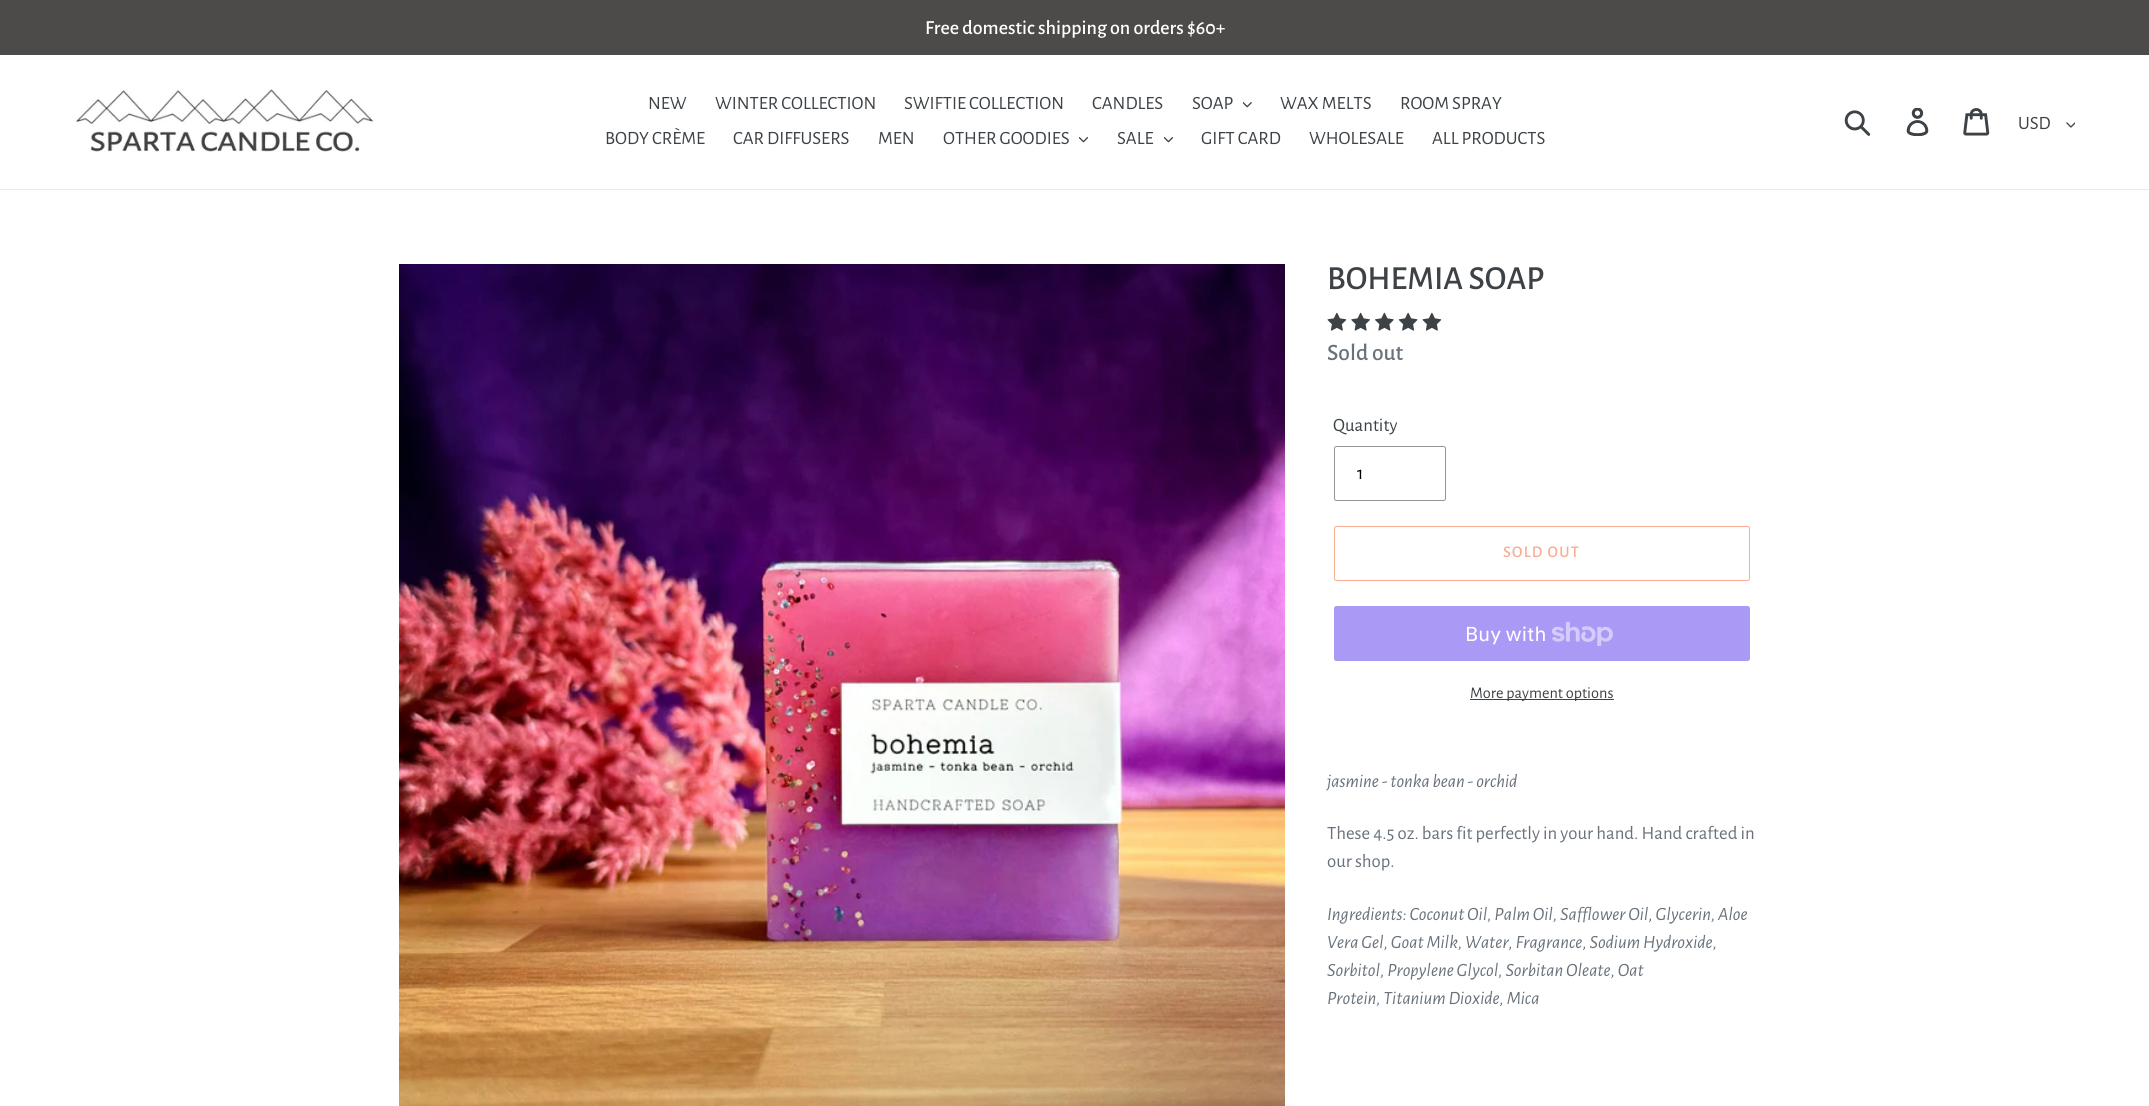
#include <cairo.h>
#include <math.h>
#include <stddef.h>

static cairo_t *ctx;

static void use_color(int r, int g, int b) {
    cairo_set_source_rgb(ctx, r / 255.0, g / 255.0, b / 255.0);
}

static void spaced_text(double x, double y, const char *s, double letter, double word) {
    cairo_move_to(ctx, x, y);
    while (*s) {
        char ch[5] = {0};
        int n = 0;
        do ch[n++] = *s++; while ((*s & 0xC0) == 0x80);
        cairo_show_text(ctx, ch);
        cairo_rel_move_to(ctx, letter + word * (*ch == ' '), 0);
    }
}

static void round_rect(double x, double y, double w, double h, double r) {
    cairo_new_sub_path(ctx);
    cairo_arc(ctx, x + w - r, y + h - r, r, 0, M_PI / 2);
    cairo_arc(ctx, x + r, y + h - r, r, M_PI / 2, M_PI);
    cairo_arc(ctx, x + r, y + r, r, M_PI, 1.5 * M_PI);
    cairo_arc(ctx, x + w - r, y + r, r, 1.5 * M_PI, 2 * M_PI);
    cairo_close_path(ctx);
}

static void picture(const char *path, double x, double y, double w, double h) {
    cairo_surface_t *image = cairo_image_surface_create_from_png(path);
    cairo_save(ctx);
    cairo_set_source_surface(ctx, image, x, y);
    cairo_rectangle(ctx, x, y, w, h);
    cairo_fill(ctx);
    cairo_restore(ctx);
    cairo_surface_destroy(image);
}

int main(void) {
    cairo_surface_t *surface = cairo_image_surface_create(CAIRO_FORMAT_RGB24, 2149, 1106);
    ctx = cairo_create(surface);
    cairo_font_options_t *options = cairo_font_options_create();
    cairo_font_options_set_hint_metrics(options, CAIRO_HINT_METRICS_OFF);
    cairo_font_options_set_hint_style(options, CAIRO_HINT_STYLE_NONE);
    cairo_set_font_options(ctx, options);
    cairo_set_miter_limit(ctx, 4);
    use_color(255, 255, 255);
    cairo_paint(ctx);
    use_color(76, 75, 74);
    cairo_rectangle(ctx, 0, 0, 2149, 55);
    cairo_fill(ctx);
    cairo_select_font_face(ctx, "Alegreya Sans Medium", CAIRO_FONT_SLANT_NORMAL, CAIRO_FONT_WEIGHT_NORMAL);
    cairo_set_font_size(ctx, 20);
    use_color(255, 255, 255);
    cairo_move_to(ctx, 925, 34);
    cairo_show_text(ctx, "Free domestic shipping on orders $60+");
    use_color(232, 233, 235);
    cairo_rectangle(ctx, 0, 189, 2149, 1);
    cairo_fill(ctx);
    picture("img1.png", 75, 89, 299, 63);
    cairo_select_font_face(ctx, "Alegreya Sans", CAIRO_FONT_SLANT_NORMAL, CAIRO_FONT_WEIGHT_NORMAL);
    cairo_set_font_size(ctx, 18.75);
    use_color(61, 66, 70);
    cairo_move_to(ctx, 648, 109);
    cairo_show_text(ctx, "NEW");
    cairo_move_to(ctx, 715, 109);
    cairo_show_text(ctx, "WINTER COLLECTION");
    cairo_move_to(ctx, 904, 109);
    cairo_show_text(ctx, "SWIFTIE COLLECTION");
    cairo_move_to(ctx, 1092, 109);
    cairo_show_text(ctx, "CANDLES");
    cairo_move_to(ctx, 1192, 109);
    cairo_show_text(ctx, "SOAP");
    picture("img2.png", 1243, 102, 9, 6);
    cairo_move_to(ctx, 1280, 109);
    cairo_show_text(ctx, "WAX MELTS");
    cairo_move_to(ctx, 1400, 109);
    cairo_show_text(ctx, "ROOM SPRAY");
    cairo_move_to(ctx, 605, 144);
    cairo_show_text(ctx, "BODY CRÈME");
    cairo_move_to(ctx, 733, 144);
    cairo_show_text(ctx, "CAR DIFFUSERS");
    cairo_move_to(ctx, 878, 144);
    cairo_show_text(ctx, "MEN");
    cairo_move_to(ctx, 943, 144);
    cairo_show_text(ctx, "OTHER GOODIES");
    picture("img3.png", 1079, 137, 10, 6);
    cairo_move_to(ctx, 1117, 144);
    cairo_show_text(ctx, "SALE");
    picture("img4.png", 1164, 137, 9, 6);
    cairo_move_to(ctx, 1201, 144);
    cairo_show_text(ctx, "GIFT CARD");
    cairo_move_to(ctx, 1309, 144);
    cairo_show_text(ctx, "WHOLESALE");
    cairo_move_to(ctx, 1432, 144);
    cairo_show_text(ctx, "ALL PRODUCTS");
    picture("img5.png", 1844, 110, 27, 26);
    picture("img6.png", 1906, 108, 23, 28);
    picture("img7.png", 1963, 108, 27, 28);
    cairo_move_to(ctx, 2018, 129);
    cairo_show_text(ctx, "USD");
    picture("img8.png", 2066, 122, 9, 6);
    picture("img9.png", 399, 264, 886, 842);
    cairo_select_font_face(ctx, "Alegreya Sans Medium", CAIRO_FONT_SLANT_NORMAL, CAIRO_FONT_WEIGHT_NORMAL);
    cairo_set_font_size(ctx, 33.75);
    cairo_move_to(ctx, 1327, 289);
    cairo_show_text(ctx, "BOHEMIA SOAP");
    picture("img10.png", 1327, 312, 20, 19);
    picture("img11.png", 1351, 312, 19, 19);
    picture("img12.png", 1375, 312, 19, 19);
    picture("img13.png", 1398, 312, 20, 19);
    picture("img10.png", 1422, 312, 20, 19);
    cairo_set_font_size(ctx, 23.5);
    use_color(105, 114, 123);
    cairo_move_to(ctx, 1327, 360);
    cairo_show_text(ctx, "Sold out");
    cairo_select_font_face(ctx, "Alegreya Sans", CAIRO_FONT_SLANT_NORMAL, CAIRO_FONT_WEIGHT_NORMAL);
    cairo_set_font_size(ctx, 18.75);
    use_color(61, 66, 70);
    cairo_move_to(ctx, 1333, 431);
    cairo_show_text(ctx, "Quantity");
    round_rect(1334.5, 446.5, 111, 54, 2);
    use_color(148, 148, 148);
    cairo_set_line_width(ctx, 1);
    cairo_stroke(ctx);
    use_color(0, 0, 0);
    cairo_move_to(ctx, 1357, 479);
    cairo_show_text(ctx, "1");
    round_rect(1334.5, 526.5, 415, 54, 2);
    use_color(250, 171, 148);
    cairo_stroke(ctx);
    cairo_select_font_face(ctx, "Alegreya Sans Medium", CAIRO_FONT_SLANT_NORMAL, CAIRO_FONT_WEIGHT_NORMAL);
    cairo_set_font_size(ctx, 16.25);
    spaced_text(1503, 557, "SOLD OUT", 1.25, 0);
    use_color(170, 153, 245);
    round_rect(1334, 606, 416, 55, 2.5);
    cairo_fill(ctx);
    cairo_select_font_face(ctx, "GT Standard", CAIRO_FONT_SLANT_NORMAL, CAIRO_FONT_WEIGHT_NORMAL);
    cairo_set_font_size(ctx, 20);
    use_color(255, 255, 255);
    cairo_move_to(ctx, 1465, 641);
    cairo_show_text(ctx, "Buy with");
    picture("img14.png", 1552, 621, 61, 25);
    use_color(61, 66, 70);
    cairo_rectangle(ctx, 1470, 699, 144, 1);
    cairo_fill(ctx);
    cairo_select_font_face(ctx, "Alegreya Sans", CAIRO_FONT_SLANT_NORMAL, CAIRO_FONT_WEIGHT_NORMAL);
    cairo_set_font_size(ctx, 16.25);
    cairo_move_to(ctx, 1470, 698);
    cairo_show_text(ctx, "More payment options");
    cairo_select_font_face(ctx, "Alegreya Sans", CAIRO_FONT_SLANT_ITALIC, CAIRO_FONT_WEIGHT_NORMAL);
    cairo_set_font_size(ctx, 18.75);
    use_color(105, 114, 123);
    cairo_move_to(ctx, 1327, 787);
    cairo_show_text(ctx, "jasmine - tonka bean - orchid");
    cairo_select_font_face(ctx, "Alegreya Sans", CAIRO_FONT_SLANT_NORMAL, CAIRO_FONT_WEIGHT_NORMAL);
    cairo_move_to(ctx, 1327, 839);
    cairo_show_text(ctx, "These 4.5 oz. bars fit perfectly in your hand. Hand crafted in");
    cairo_move_to(ctx, 1327, 867);
    cairo_show_text(ctx, "our shop.");
    cairo_select_font_face(ctx, "Alegreya Sans", CAIRO_FONT_SLANT_ITALIC, CAIRO_FONT_WEIGHT_NORMAL);
    cairo_move_to(ctx, 1327, 920);
    cairo_show_text(ctx, "Ingredients: Coconut Oil, Palm Oil, Safflower Oil, Glycerin, Aloe");
    cairo_move_to(ctx, 1327, 948);
    cairo_show_text(ctx, "Vera Gel, Goat Milk, Water, Fragrance, Sodium Hydroxide,");
    cairo_move_to(ctx, 1327, 976);
    cairo_show_text(ctx, "Sorbitol, Propylene Glycol, Sorbitan Oleate, Oat");
    cairo_move_to(ctx, 1327, 1004);
    cairo_show_text(ctx, "Protein, Titanium Dioxide, Mica");
    cairo_surface_write_to_png(surface, "result.png");
    cairo_font_options_destroy(options);
    cairo_destroy(ctx);
    cairo_surface_destroy(surface);
    return 0;
}
